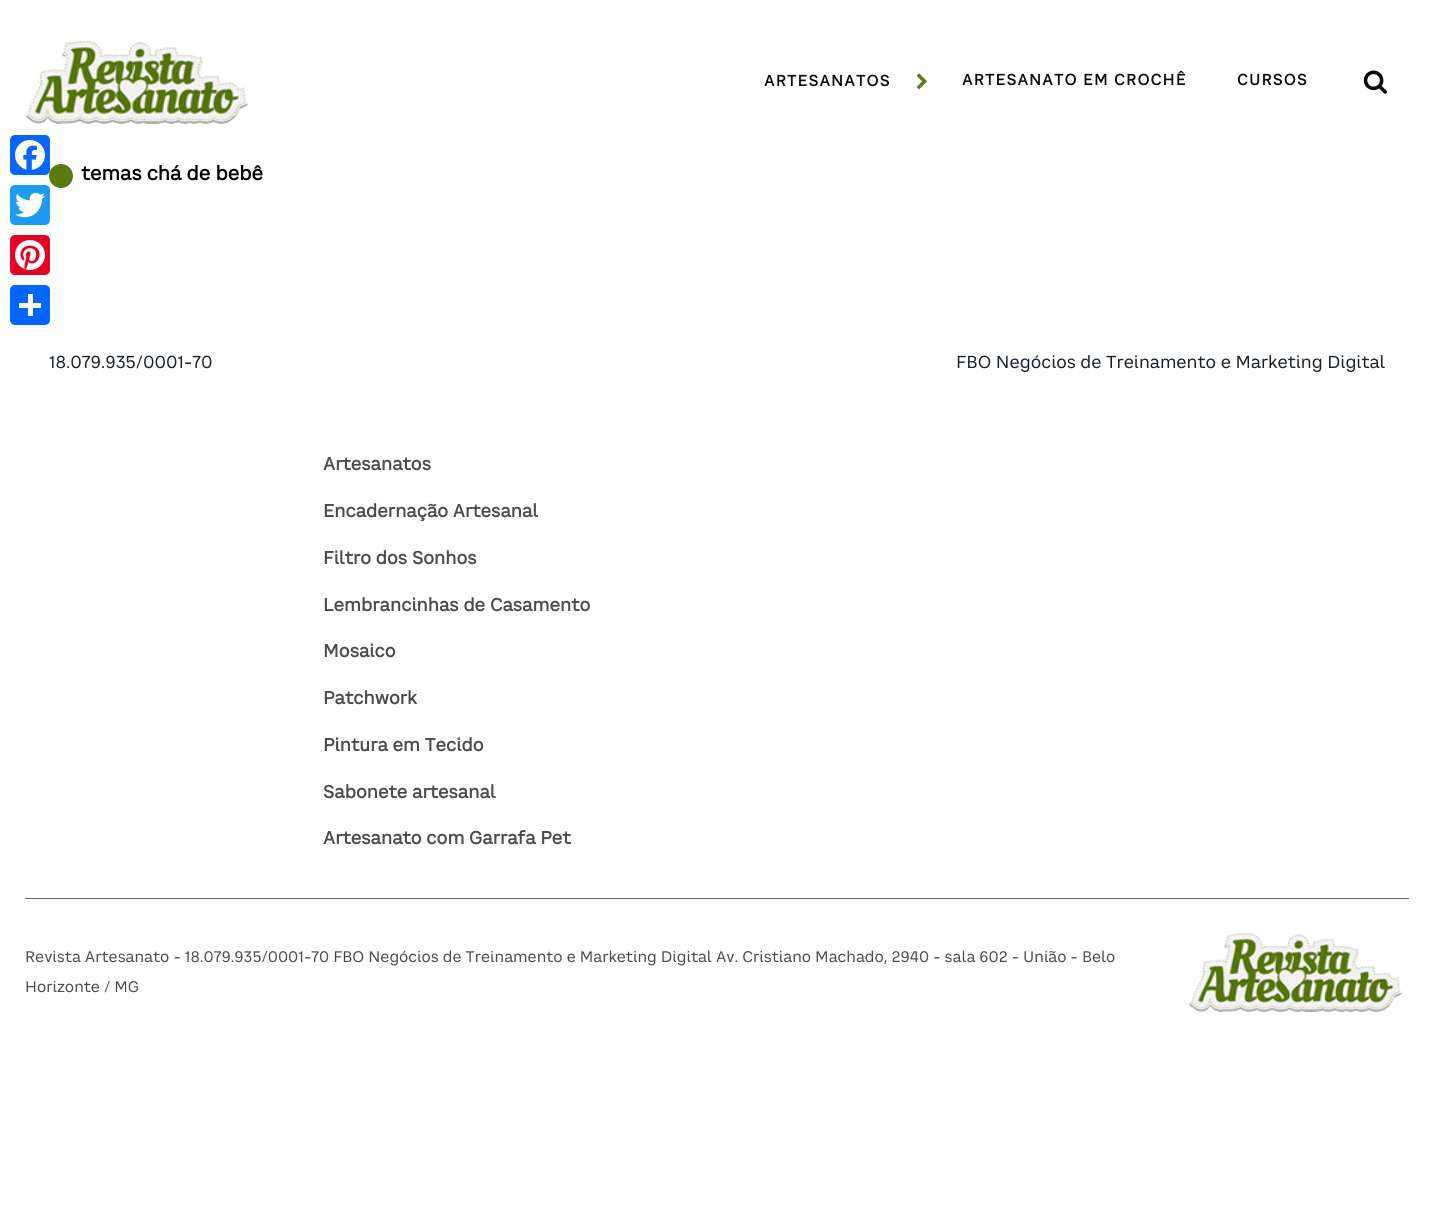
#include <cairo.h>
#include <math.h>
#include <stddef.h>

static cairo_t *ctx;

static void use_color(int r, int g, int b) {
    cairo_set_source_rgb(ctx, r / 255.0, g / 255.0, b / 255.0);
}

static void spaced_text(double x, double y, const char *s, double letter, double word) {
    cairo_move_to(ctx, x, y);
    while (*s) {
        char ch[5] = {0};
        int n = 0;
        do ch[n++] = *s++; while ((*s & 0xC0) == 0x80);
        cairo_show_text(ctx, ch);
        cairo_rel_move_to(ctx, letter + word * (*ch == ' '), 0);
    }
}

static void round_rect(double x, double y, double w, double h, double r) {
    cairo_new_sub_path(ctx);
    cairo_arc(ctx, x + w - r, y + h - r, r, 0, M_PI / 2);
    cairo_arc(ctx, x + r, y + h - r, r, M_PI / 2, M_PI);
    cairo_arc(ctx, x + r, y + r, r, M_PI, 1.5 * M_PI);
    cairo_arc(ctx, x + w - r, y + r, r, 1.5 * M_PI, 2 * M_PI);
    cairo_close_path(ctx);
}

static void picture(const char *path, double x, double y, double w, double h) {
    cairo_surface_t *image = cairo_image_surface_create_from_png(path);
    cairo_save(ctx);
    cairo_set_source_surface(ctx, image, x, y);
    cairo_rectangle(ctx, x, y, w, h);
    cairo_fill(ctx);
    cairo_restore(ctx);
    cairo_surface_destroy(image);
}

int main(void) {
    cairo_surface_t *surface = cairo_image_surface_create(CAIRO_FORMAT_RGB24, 1433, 1225);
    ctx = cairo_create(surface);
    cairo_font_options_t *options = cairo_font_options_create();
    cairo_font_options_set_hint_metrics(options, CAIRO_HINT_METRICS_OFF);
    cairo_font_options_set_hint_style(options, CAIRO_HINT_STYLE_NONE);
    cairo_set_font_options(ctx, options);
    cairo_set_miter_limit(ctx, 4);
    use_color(255, 255, 255);
    cairo_paint(ctx);
    picture("img1.png", 25, 40, 223, 84);
    cairo_select_font_face(ctx, "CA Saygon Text", CAIRO_FONT_SLANT_NORMAL, CAIRO_FONT_WEIGHT_BOLD);
    cairo_set_font_size(ctx, 15);
    use_color(10, 10, 10);
    spaced_text(764, 86, "ARTESANATOS", 1.25, 0);
    picture("img2.png", 916, 73, 11, 17);
    spaced_text(962, 85, "ARTESANATO EM CROCHÊ", 1.25, 0);
    spaced_text(1237, 85, "CURSOS", 1.25, 0);
    picture("img3.png", 1363, 70, 24, 24);
    use_color(90, 123, 16);
    cairo_arc(ctx, 61, 176, 12, 0, 2 * M_PI);
    cairo_fill(ctx);
    cairo_set_font_size(ctx, 19.1);
    use_color(0, 0, 0);
    cairo_move_to(ctx, 81, 180);
    cairo_show_text(ctx, "temas chá de bebê");
    cairo_select_font_face(ctx, "CA Saygon Text", CAIRO_FONT_SLANT_NORMAL, CAIRO_FONT_WEIGHT_NORMAL);
    cairo_set_font_size(ctx, 17);
    use_color(26, 32, 44);
    cairo_move_to(ctx, 49, 368);
    cairo_show_text(ctx, "18.079.935/0001-70");
    cairo_move_to(ctx, 956, 368);
    cairo_show_text(ctx, "FBO Negócios de Treinamento e Marketing Digital");
    cairo_select_font_face(ctx, "CA Saygon Text", CAIRO_FONT_SLANT_NORMAL, CAIRO_FONT_WEIGHT_BOLD);
    cairo_set_font_size(ctx, 17.5);
    use_color(74, 75, 76);
    cairo_move_to(ctx, 323, 470);
    cairo_show_text(ctx, "Artesanatos");
    cairo_move_to(ctx, 323, 517);
    cairo_show_text(ctx, "Encadernação Artesanal");
    cairo_move_to(ctx, 323, 564);
    cairo_show_text(ctx, "Filtro dos Sonhos");
    cairo_move_to(ctx, 323, 611);
    cairo_show_text(ctx, "Lembrancinhas de Casamento");
    cairo_move_to(ctx, 323, 657);
    cairo_show_text(ctx, "Mosaico");
    cairo_move_to(ctx, 323, 704);
    cairo_show_text(ctx, "Patchwork");
    cairo_move_to(ctx, 323, 751);
    cairo_show_text(ctx, "Pintura em Tecido");
    cairo_move_to(ctx, 323, 798);
    cairo_show_text(ctx, "Sabonete artesanal");
    cairo_move_to(ctx, 323, 844);
    cairo_show_text(ctx, "Artesanato com Garrafa Pet");
    use_color(102, 102, 102);
    cairo_rectangle(ctx, 25, 898, 1384, 1);
    cairo_fill(ctx);
    cairo_select_font_face(ctx, "CA Saygon Text", CAIRO_FONT_SLANT_NORMAL, CAIRO_FONT_WEIGHT_NORMAL);
    cairo_set_font_size(ctx, 15);
    use_color(74, 75, 76);
    cairo_move_to(ctx, 25, 962);
    cairo_show_text(ctx, "Revista Artesanato - 18.079.935/0001-70 FBO Negócios de Treinamento e Marketing Digital Av. Cristiano Machado, 2940 - sala 602 - União - Belo");
    cairo_move_to(ctx, 25, 992);
    cairo_show_text(ctx, "Horizonte / MG");
    picture("img4.png", 1188, 932, 214, 80);
    use_color(8, 102, 255);
    round_rect(10, 135, 40, 40, 5);
    cairo_fill(ctx);
    picture("img5.png", 15, 140, 30, 30);
    use_color(29, 155, 240);
    round_rect(10, 185, 40, 40, 5);
    cairo_fill(ctx);
    picture("img6.png", 15, 192, 30, 26);
    use_color(230, 0, 35);
    round_rect(10, 235, 40, 40, 5);
    cairo_fill(ctx);
    picture("img7.png", 15, 240, 30, 30);
    use_color(1, 102, 255);
    round_rect(10, 285, 40, 40, 5);
    cairo_fill(ctx);
    use_color(255, 255, 255);
    cairo_rectangle(ctx, 28, 294, 5, 22);
    cairo_fill(ctx);
    cairo_rectangle(ctx, 19, 303, 22, 5);
    cairo_fill(ctx);
    cairo_surface_write_to_png(surface, "result.png");
    cairo_font_options_destroy(options);
    cairo_destroy(ctx);
    cairo_surface_destroy(surface);
    return 0;
}
